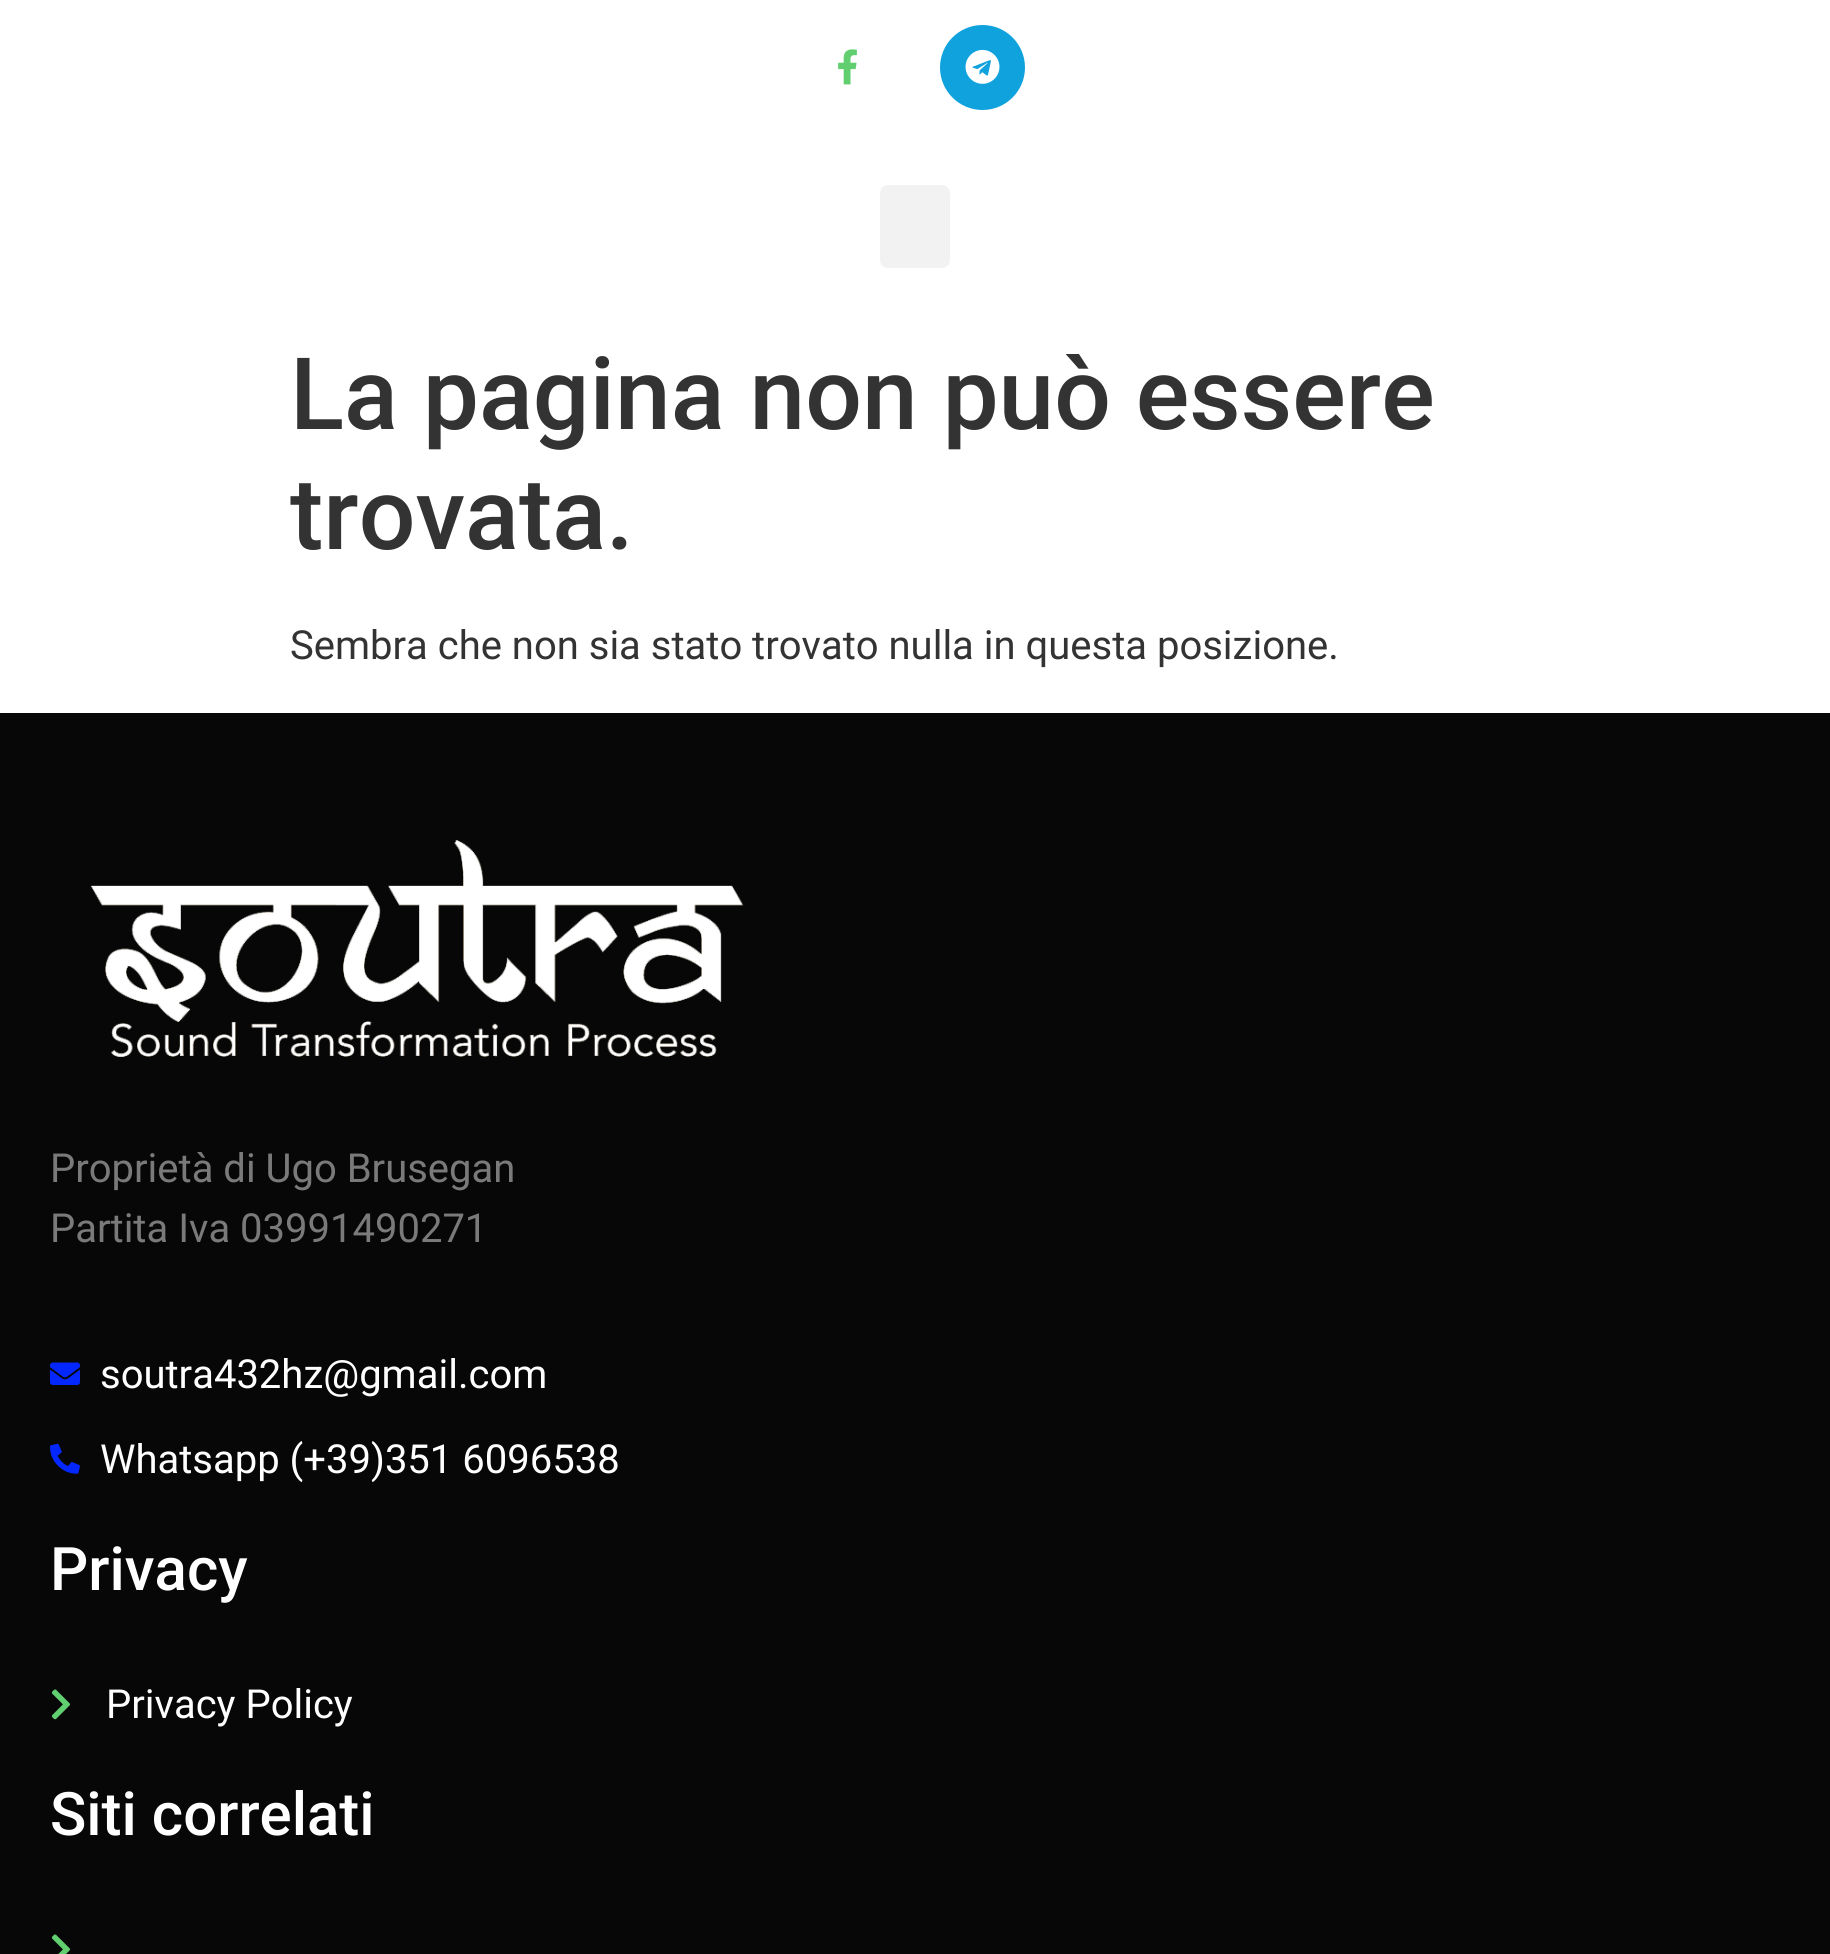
#include <cairo.h>
#include <math.h>
#include <stddef.h>

static cairo_t *ctx;

static void use_color(int r, int g, int b) {
    cairo_set_source_rgb(ctx, r / 255.0, g / 255.0, b / 255.0);
}

static void round_rect(double x, double y, double w, double h, double r) {
    cairo_new_sub_path(ctx);
    cairo_arc(ctx, x + w - r, y + h - r, r, 0, M_PI / 2);
    cairo_arc(ctx, x + r, y + h - r, r, M_PI / 2, M_PI);
    cairo_arc(ctx, x + r, y + r, r, M_PI, 1.5 * M_PI);
    cairo_arc(ctx, x + w - r, y + r, r, 1.5 * M_PI, 2 * M_PI);
    cairo_close_path(ctx);
}

static void picture(const char *path, double x, double y, double w, double h) {
    cairo_surface_t *image = cairo_image_surface_create_from_png(path);
    cairo_save(ctx);
    cairo_set_source_surface(ctx, image, x, y);
    cairo_rectangle(ctx, x, y, w, h);
    cairo_fill(ctx);
    cairo_restore(ctx);
    cairo_surface_destroy(image);
}

int main(void) {
    cairo_surface_t *surface = cairo_image_surface_create(CAIRO_FORMAT_RGB24, 1830, 1954);
    ctx = cairo_create(surface);
    cairo_font_options_t *options = cairo_font_options_create();
    cairo_font_options_set_hint_metrics(options, CAIRO_HINT_METRICS_OFF);
    cairo_font_options_set_hint_style(options, CAIRO_HINT_STYLE_NONE);
    cairo_set_font_options(ctx, options);
    cairo_set_miter_limit(ctx, 4);
    use_color(255, 255, 255);
    cairo_paint(ctx);
    picture("img1.png", 838, 49, 19, 36);
    use_color(15, 162, 221);
    cairo_arc(ctx, 982.5, 67.5, 42.5, 0, 2 * M_PI);
    cairo_fill(ctx);
    picture("img2.png", 965, 49, 35, 35);
    use_color(242, 242, 242);
    round_rect(880, 185, 70, 83, 8);
    cairo_fill(ctx);
    cairo_select_font_face(ctx, "Roboto Medium", CAIRO_FONT_SLANT_NORMAL, CAIRO_FONT_WEIGHT_NORMAL);
    cairo_set_font_size(ctx, 100);
    use_color(51, 51, 51);
    cairo_move_to(ctx, 290, 429);
    cairo_show_text(ctx, "La pagina non può essere");
    cairo_move_to(ctx, 290, 549);
    cairo_show_text(ctx, "trovata.");
    cairo_select_font_face(ctx, "Roboto", CAIRO_FONT_SLANT_NORMAL, CAIRO_FONT_WEIGHT_NORMAL);
    cairo_set_font_size(ctx, 40);
    cairo_move_to(ctx, 290, 659);
    cairo_show_text(ctx, "Sembra che non sia stato trovato nulla in questa posizione.");
    use_color(7, 7, 7);
    cairo_rectangle(ctx, 0, 713, 1830, 1241);
    cairo_fill(ctx);
    picture("img3.png", 91, 840, 653, 217);
    use_color(122, 122, 122);
    cairo_move_to(ctx, 50, 1182);
    cairo_show_text(ctx, "Proprietà di Ugo Brusegan");
    cairo_move_to(ctx, 50, 1242);
    cairo_show_text(ctx, "Partita Iva 03991490271");
    picture("img4.png", 50, 1362, 30, 23);
    use_color(255, 255, 255);
    cairo_move_to(ctx, 100, 1388);
    cairo_show_text(ctx, "soutra432hz@gmail.com");
    picture("img5.png", 50, 1443, 30, 31);
    cairo_move_to(ctx, 100, 1473);
    cairo_show_text(ctx, "Whatsapp (+39)351 6096538");
    cairo_select_font_face(ctx, "Roboto Medium", CAIRO_FONT_SLANT_NORMAL, CAIRO_FONT_WEIGHT_NORMAL);
    cairo_set_font_size(ctx, 60);
    cairo_move_to(ctx, 50, 1590);
    cairo_show_text(ctx, "Privacy");
    picture("img6.png", 51, 1689, 19, 31);
    cairo_select_font_face(ctx, "Roboto", CAIRO_FONT_SLANT_NORMAL, CAIRO_FONT_WEIGHT_NORMAL);
    cairo_set_font_size(ctx, 40);
    cairo_move_to(ctx, 106, 1718);
    cairo_show_text(ctx, "Privacy Policy");
    cairo_select_font_face(ctx, "Roboto Medium", CAIRO_FONT_SLANT_NORMAL, CAIRO_FONT_WEIGHT_NORMAL);
    cairo_set_font_size(ctx, 60);
    cairo_move_to(ctx, 50, 1835);
    cairo_show_text(ctx, "Siti correlati");
    picture("img7.png", 51, 1934, 19, 20);
    cairo_surface_write_to_png(surface, "result.png");
    cairo_font_options_destroy(options);
    cairo_destroy(ctx);
    cairo_surface_destroy(surface);
    return 0;
}
